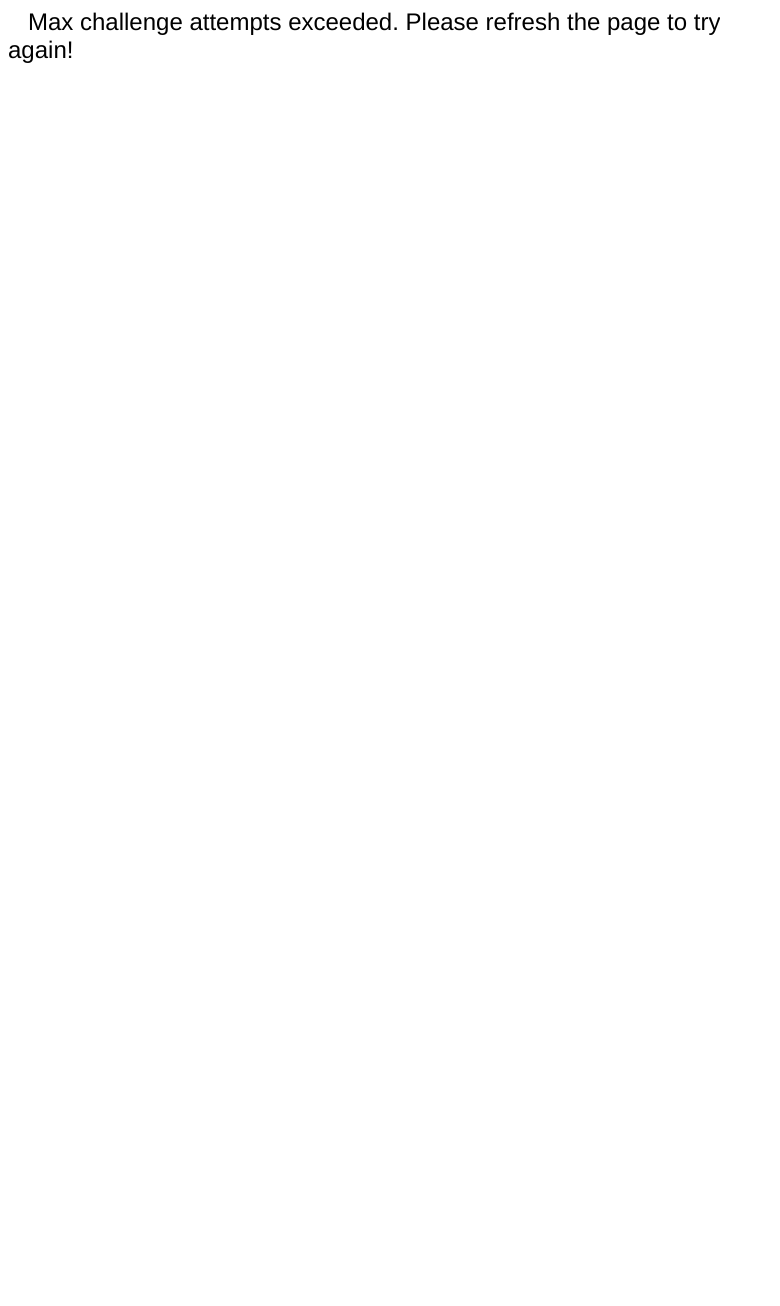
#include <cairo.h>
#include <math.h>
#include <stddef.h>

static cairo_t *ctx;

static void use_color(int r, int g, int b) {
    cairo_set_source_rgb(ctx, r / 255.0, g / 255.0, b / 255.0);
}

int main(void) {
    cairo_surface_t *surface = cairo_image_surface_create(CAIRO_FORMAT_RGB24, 780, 1306);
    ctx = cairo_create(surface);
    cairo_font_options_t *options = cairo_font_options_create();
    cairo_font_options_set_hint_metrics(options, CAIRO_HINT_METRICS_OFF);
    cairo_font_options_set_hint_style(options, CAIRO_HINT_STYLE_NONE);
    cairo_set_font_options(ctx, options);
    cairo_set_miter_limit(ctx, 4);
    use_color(255, 255, 255);
    cairo_paint(ctx);
    cairo_select_font_face(ctx, "Liberation Sans", CAIRO_FONT_SLANT_NORMAL, CAIRO_FONT_WEIGHT_NORMAL);
    cairo_set_font_size(ctx, 24);
    use_color(0, 0, 0);
    cairo_move_to(ctx, 28, 30);
    cairo_show_text(ctx, "Max challenge attempts exceeded. Please refresh the page to try");
    cairo_move_to(ctx, 8, 58);
    cairo_show_text(ctx, "again!");
    cairo_surface_write_to_png(surface, "result.png");
    cairo_font_options_destroy(options);
    cairo_destroy(ctx);
    cairo_surface_destroy(surface);
    return 0;
}
